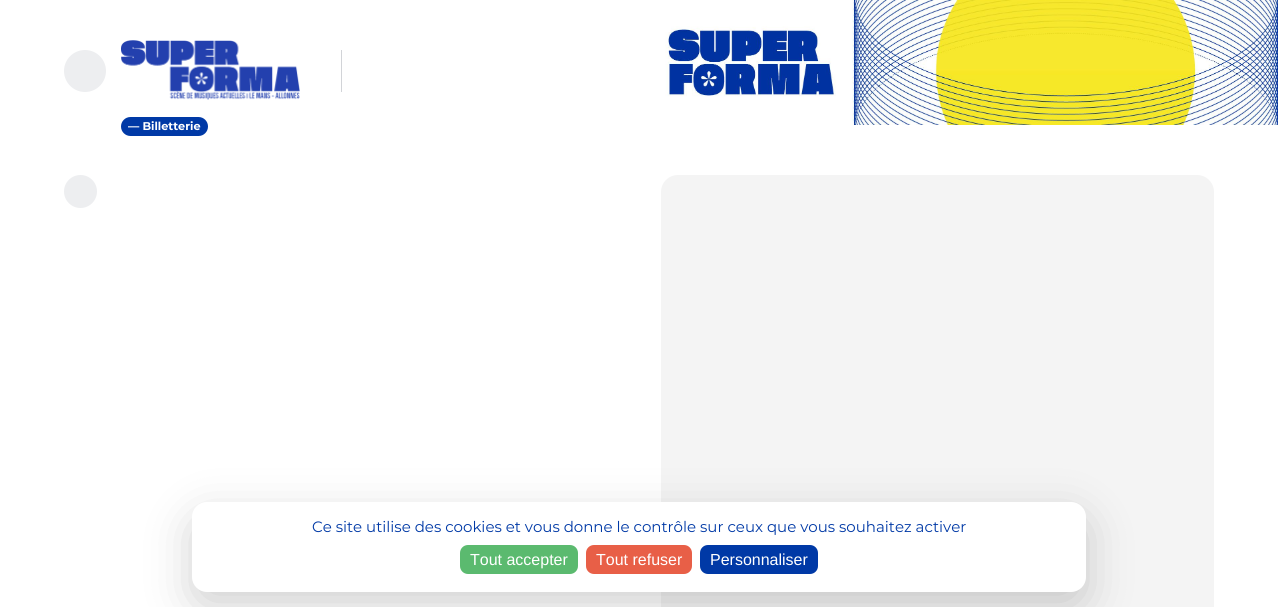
#include <cairo.h>
#include <math.h>
#include <stddef.h>

static cairo_t *ctx;

static void use_color(int r, int g, int b) {
    cairo_set_source_rgb(ctx, r / 255.0, g / 255.0, b / 255.0);
}

static void round_rect(double x, double y, double w, double h, double r) {
    cairo_new_sub_path(ctx);
    cairo_arc(ctx, x + w - r, y + h - r, r, 0, M_PI / 2);
    cairo_arc(ctx, x + r, y + h - r, r, M_PI / 2, M_PI);
    cairo_arc(ctx, x + r, y + r, r, M_PI, 1.5 * M_PI);
    cairo_arc(ctx, x + w - r, y + r, r, 1.5 * M_PI, 2 * M_PI);
    cairo_close_path(ctx);
}

static void shadow(double x, double y, double w, double h, double r, double blur, double alpha) {
    cairo_push_group_with_content(ctx, CAIRO_CONTENT_ALPHA);
    cairo_set_operator(ctx, CAIRO_OPERATOR_SOURCE);
    for (int i = 15; i >= -15 && fmin(w, h) + blur * i / 3 > 0; i -= 2) {
        double e = blur * i / 6;
        cairo_set_source_rgba(ctx, 0, 0, 0, alpha * erfc((i - 1) / 8.5) / 2);
        round_rect(x - e, y - e, w + 2 * e, h + 2 * e, fmax(0, fmin(r + e + blur * .6, fmin(w, h) / 2 + e)));
        cairo_fill(ctx);
    }
    cairo_pattern_t *soft = cairo_pop_group(ctx);
    cairo_mask(ctx, soft);
    cairo_pattern_destroy(soft);
}

static void picture(const char *path, double x, double y, double w, double h) {
    cairo_surface_t *image = cairo_image_surface_create_from_png(path);
    cairo_save(ctx);
    cairo_set_source_surface(ctx, image, x, y);
    cairo_rectangle(ctx, x, y, w, h);
    cairo_fill(ctx);
    cairo_restore(ctx);
    cairo_surface_destroy(image);
}

int main(void) {
    cairo_surface_t *surface = cairo_image_surface_create(CAIRO_FORMAT_RGB24, 1278, 607);
    ctx = cairo_create(surface);
    cairo_font_options_t *options = cairo_font_options_create();
    cairo_font_options_set_hint_metrics(options, CAIRO_HINT_METRICS_OFF);
    cairo_font_options_set_hint_style(options, CAIRO_HINT_STYLE_NONE);
    cairo_set_font_options(ctx, options);
    cairo_set_miter_limit(ctx, 4);
    use_color(255, 255, 255);
    cairo_paint(ctx);
    picture("img1.png", 665, 0, 613, 125);
    use_color(237, 238, 240);
    cairo_arc(ctx, 85, 71, 21, 0, 2 * M_PI);
    cairo_fill(ctx);
    use_color(210, 212, 216);
    cairo_rectangle(ctx, 341, 50, 1, 42);
    cairo_fill(ctx);
    picture("img2.png", 121, 40, 179, 60);
    use_color(0, 57, 166);
    round_rect(121, 117, 87, 19, 9.5);
    cairo_fill(ctx);
    cairo_select_font_face(ctx, "Montserrat", CAIRO_FONT_SLANT_NORMAL, CAIRO_FONT_WEIGHT_BOLD);
    cairo_set_font_size(ctx, 11.25);
    use_color(255, 255, 255);
    cairo_move_to(ctx, 128, 130);
    cairo_show_text(ctx, "— Billetterie");
    use_color(237, 238, 240);
    cairo_new_path(ctx);
    cairo_arc(ctx, 80.5, 191.5, 16.5, 0, 2 * M_PI);
    cairo_fill(ctx);
    use_color(244, 244, 244);
    round_rect(661, 175, 553, 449, 17);
    cairo_fill(ctx);
    use_color(0, 0, 0);
    shadow(192, 517, 894, 90, 15, 22.5, 0.18);
    use_color(255, 255, 255);
    round_rect(192, 502, 894, 90, 15);
    cairo_fill(ctx);
    cairo_select_font_face(ctx, "Montserrat", CAIRO_FONT_SLANT_NORMAL, CAIRO_FONT_WEIGHT_NORMAL);
    cairo_set_font_size(ctx, 15);
    use_color(0, 57, 166);
    cairo_move_to(ctx, 312, 532);
    cairo_show_text(ctx, "Ce site utilise des cookies et vous donne le contrôle sur ceux que vous souhaitez activer");
    use_color(91, 186, 111);
    round_rect(460, 545, 118, 29, 8);
    cairo_fill(ctx);
    cairo_select_font_face(ctx, "Liberation Sans", CAIRO_FONT_SLANT_NORMAL, CAIRO_FONT_WEIGHT_NORMAL);
    cairo_set_font_size(ctx, 16);
    use_color(255, 255, 255);
    cairo_move_to(ctx, 470, 565);
    cairo_show_text(ctx, "Tout accepter");
    use_color(232, 95, 71);
    round_rect(586, 545, 106, 29, 8);
    cairo_fill(ctx);
    use_color(255, 255, 255);
    cairo_move_to(ctx, 596, 565);
    cairo_show_text(ctx, "Tout refuser");
    use_color(0, 57, 166);
    round_rect(700, 545, 118, 29, 8);
    cairo_fill(ctx);
    use_color(255, 255, 255);
    cairo_move_to(ctx, 710, 565);
    cairo_show_text(ctx, "Personnaliser");
    cairo_surface_write_to_png(surface, "result.png");
    cairo_font_options_destroy(options);
    cairo_destroy(ctx);
    cairo_surface_destroy(surface);
    return 0;
}
